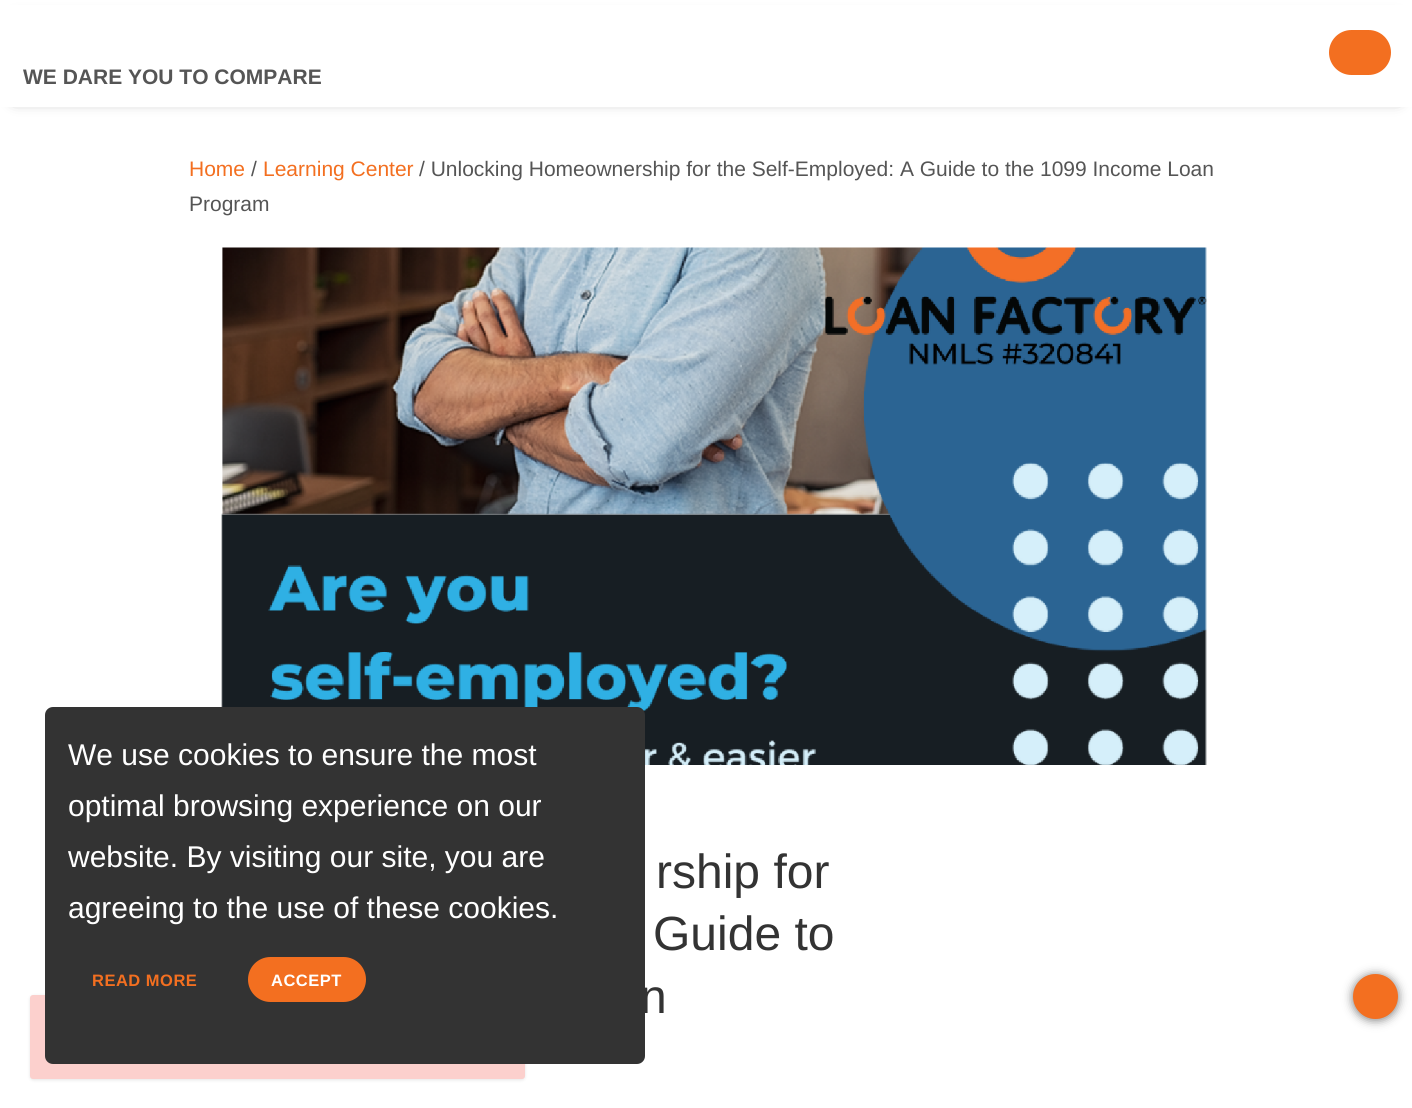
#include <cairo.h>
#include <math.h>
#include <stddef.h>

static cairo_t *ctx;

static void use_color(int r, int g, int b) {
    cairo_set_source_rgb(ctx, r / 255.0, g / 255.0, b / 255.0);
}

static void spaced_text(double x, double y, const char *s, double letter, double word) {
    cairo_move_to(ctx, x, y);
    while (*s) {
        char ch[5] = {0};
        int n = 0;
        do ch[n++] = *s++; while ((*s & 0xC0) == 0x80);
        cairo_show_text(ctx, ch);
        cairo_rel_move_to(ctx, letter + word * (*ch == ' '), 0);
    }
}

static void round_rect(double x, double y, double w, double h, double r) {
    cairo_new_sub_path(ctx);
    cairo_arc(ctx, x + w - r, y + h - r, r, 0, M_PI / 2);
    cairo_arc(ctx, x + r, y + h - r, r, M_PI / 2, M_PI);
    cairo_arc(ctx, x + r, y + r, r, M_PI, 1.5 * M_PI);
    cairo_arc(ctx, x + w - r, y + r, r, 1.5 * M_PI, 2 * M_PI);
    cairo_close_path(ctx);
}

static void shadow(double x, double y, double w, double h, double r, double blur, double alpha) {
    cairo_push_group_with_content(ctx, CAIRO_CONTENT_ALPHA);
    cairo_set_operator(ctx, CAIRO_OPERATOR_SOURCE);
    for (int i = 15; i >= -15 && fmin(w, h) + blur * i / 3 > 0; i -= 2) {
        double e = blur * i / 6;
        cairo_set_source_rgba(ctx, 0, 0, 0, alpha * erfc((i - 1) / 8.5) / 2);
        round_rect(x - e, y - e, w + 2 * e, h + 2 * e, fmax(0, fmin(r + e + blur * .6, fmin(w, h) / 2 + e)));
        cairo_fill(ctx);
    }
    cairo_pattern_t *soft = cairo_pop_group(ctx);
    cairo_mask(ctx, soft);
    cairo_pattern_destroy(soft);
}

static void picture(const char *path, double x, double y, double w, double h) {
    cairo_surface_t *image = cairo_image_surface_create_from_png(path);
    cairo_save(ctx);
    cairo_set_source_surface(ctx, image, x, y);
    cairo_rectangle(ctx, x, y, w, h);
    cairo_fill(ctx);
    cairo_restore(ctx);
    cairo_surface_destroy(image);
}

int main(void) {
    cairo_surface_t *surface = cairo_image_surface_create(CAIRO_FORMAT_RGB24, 1412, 1108);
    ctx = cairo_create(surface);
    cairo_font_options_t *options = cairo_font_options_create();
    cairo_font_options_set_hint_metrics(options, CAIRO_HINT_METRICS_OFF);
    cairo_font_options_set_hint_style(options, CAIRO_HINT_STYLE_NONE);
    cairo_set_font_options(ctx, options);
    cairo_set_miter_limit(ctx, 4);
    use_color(255, 255, 255);
    cairo_paint(ctx);
    use_color(0, 0, 0);
    shadow(15, 21, 1383, 77, 0, 7.5, 0.6);
    use_color(255, 255, 255);
    cairo_rectangle(ctx, 0, 5, 1412, 102);
    cairo_fill(ctx);
    use_color(243, 111, 32);
    round_rect(1329, 30, 62, 45, 22.5);
    cairo_fill(ctx);
    cairo_select_font_face(ctx, "Liberation Sans", CAIRO_FONT_SLANT_NORMAL, CAIRO_FONT_WEIGHT_BOLD);
    cairo_set_font_size(ctx, 21);
    use_color(85, 85, 85);
    cairo_move_to(ctx, 23, 84);
    cairo_show_text(ctx, "WE DARE YOU TO COMPARE");
    cairo_select_font_face(ctx, "Liberation Sans", CAIRO_FONT_SLANT_NORMAL, CAIRO_FONT_WEIGHT_NORMAL);
    use_color(243, 111, 32);
    cairo_move_to(ctx, 189, 176);
    cairo_show_text(ctx, "Home");
    use_color(85, 85, 85);
    cairo_move_to(ctx, 251, 176);
    cairo_show_text(ctx, "/");
    use_color(243, 111, 32);
    cairo_move_to(ctx, 263, 176);
    cairo_show_text(ctx, "Learning Center");
    use_color(85, 85, 85);
    cairo_move_to(ctx, 419, 176);
    cairo_show_text(ctx, "/ Unlocking Homeownership for the Self-Employed: A Guide to the 1099 Income Loan");
    cairo_move_to(ctx, 189, 211);
    cairo_show_text(ctx, "Program");
    picture("img1.png", 221, 247, 986, 518);
    cairo_set_font_size(ctx, 48);
    use_color(51, 51, 51);
    cairo_move_to(ctx, 656, 888);
    cairo_show_text(ctx, "rship for");
    cairo_move_to(ctx, 653, 950);
    cairo_show_text(ctx, "Guide to");
    cairo_move_to(ctx, 640, 1013);
    cairo_show_text(ctx, "n");
    use_color(0, 0, 0);
    shadow(30, 996, 495, 84, 3, 1.5, 0.1);
    use_color(252, 208, 205);
    round_rect(31, 996, 493, 82, 2);
    cairo_fill_preserve(ctx);
    cairo_stroke(ctx);
    use_color(51, 51, 51);
    round_rect(45, 707, 600, 357, 8);
    cairo_fill(ctx);
    cairo_set_font_size(ctx, 30);
    use_color(255, 255, 255);
    cairo_move_to(ctx, 68, 765);
    cairo_show_text(ctx, "We use cookies to ensure the most");
    cairo_move_to(ctx, 68, 816);
    cairo_show_text(ctx, "optimal browsing experience on our");
    cairo_move_to(ctx, 68, 867);
    cairo_show_text(ctx, "website. By visiting our site, you are");
    cairo_move_to(ctx, 68, 918);
    cairo_show_text(ctx, "agreeing to the use of these cookies.");
    cairo_select_font_face(ctx, "Liberation Sans", CAIRO_FONT_SLANT_NORMAL, CAIRO_FONT_WEIGHT_BOLD);
    cairo_set_font_size(ctx, 16.5);
    use_color(243, 111, 32);
    spaced_text(92, 986, "READ MORE", 0.5, 0);
    round_rect(248, 957, 118, 45, 22.5);
    cairo_fill(ctx);
    use_color(255, 255, 255);
    spaced_text(271, 986, "ACCEPT", 0.5, 0);
    use_color(119, 119, 119);
    shadow(1353, 975, 45, 45, 22.5, 5, 1);
    use_color(243, 111, 32);
    cairo_arc(ctx, 1375.5, 996.5, 22.5, 0, 2 * M_PI);
    cairo_fill(ctx);
    cairo_surface_write_to_png(surface, "result.png");
    cairo_font_options_destroy(options);
    cairo_destroy(ctx);
    cairo_surface_destroy(surface);
    return 0;
}
